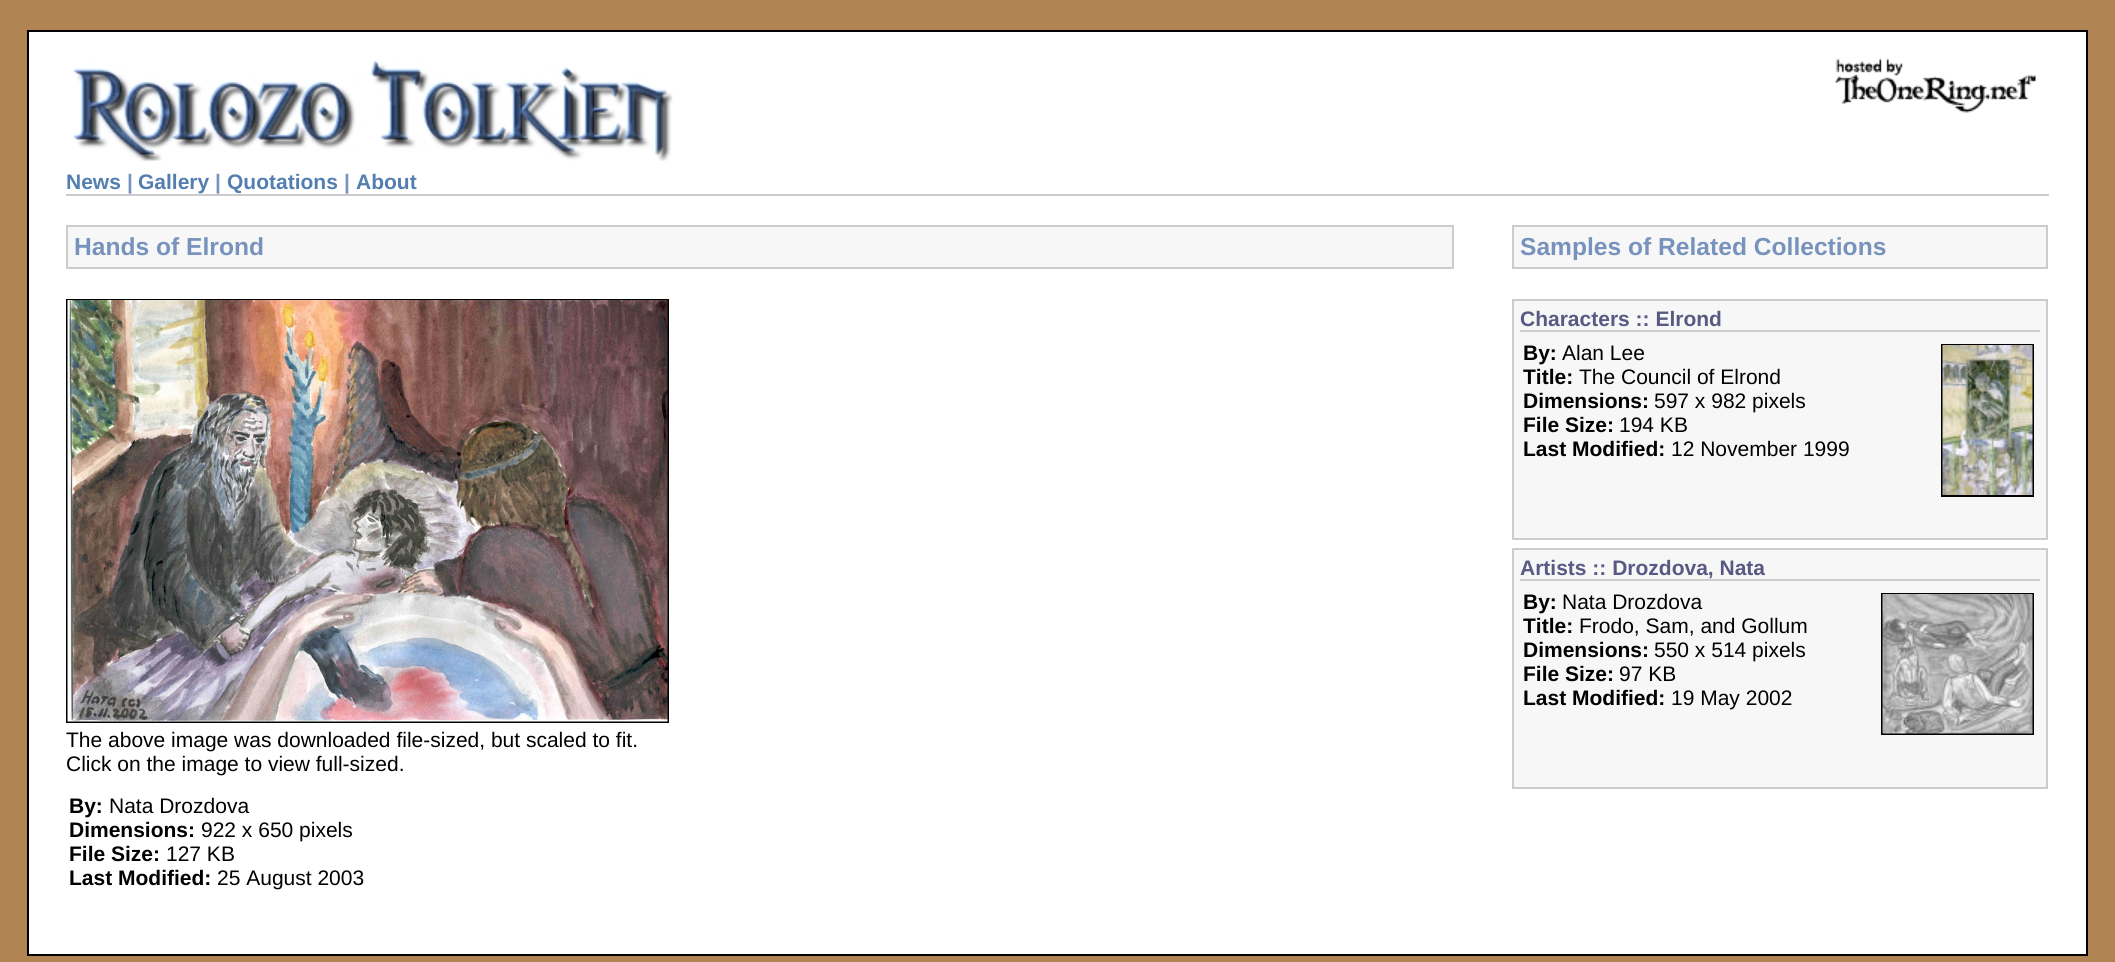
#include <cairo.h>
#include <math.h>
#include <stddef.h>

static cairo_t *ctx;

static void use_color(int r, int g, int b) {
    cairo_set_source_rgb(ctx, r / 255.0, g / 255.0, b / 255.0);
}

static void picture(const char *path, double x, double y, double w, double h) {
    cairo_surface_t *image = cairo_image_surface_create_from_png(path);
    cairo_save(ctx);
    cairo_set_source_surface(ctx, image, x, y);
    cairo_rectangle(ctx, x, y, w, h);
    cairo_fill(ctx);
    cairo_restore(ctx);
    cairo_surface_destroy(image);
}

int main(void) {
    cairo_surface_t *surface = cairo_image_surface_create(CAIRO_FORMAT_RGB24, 2115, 962);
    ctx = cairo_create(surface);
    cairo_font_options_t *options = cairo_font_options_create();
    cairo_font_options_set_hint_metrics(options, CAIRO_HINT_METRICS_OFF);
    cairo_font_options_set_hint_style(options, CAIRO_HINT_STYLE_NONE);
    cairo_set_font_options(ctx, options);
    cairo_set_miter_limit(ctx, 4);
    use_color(176, 133, 83);
    cairo_paint(ctx);
    use_color(255, 255, 255);
    cairo_rectangle(ctx, 28, 31, 2059, 924);
    cairo_fill_preserve(ctx);
    use_color(0, 0, 0);
    cairo_stroke(ctx);
    picture("img1.png", 73, 60, 600, 101);
    picture("img2.png", 1834, 58, 202, 55);
    use_color(204, 204, 204);
    cairo_rectangle(ctx, 66, 194, 1983, 2);
    cairo_fill(ctx);
    cairo_select_font_face(ctx, "Liberation Sans", CAIRO_FONT_SLANT_NORMAL, CAIRO_FONT_WEIGHT_BOLD);
    cairo_set_font_size(ctx, 21);
    use_color(83, 126, 176);
    cairo_move_to(ctx, 66, 189);
    cairo_show_text(ctx, "News");
    use_color(119, 146, 188);
    cairo_move_to(ctx, 127, 189);
    cairo_show_text(ctx, "|");
    use_color(83, 126, 176);
    cairo_move_to(ctx, 138, 189);
    cairo_show_text(ctx, "Gallery");
    use_color(119, 146, 188);
    cairo_move_to(ctx, 215, 189);
    cairo_show_text(ctx, "|");
    use_color(83, 126, 176);
    cairo_move_to(ctx, 227, 189);
    cairo_show_text(ctx, "Quotations");
    use_color(119, 146, 188);
    cairo_move_to(ctx, 344, 189);
    cairo_show_text(ctx, "|");
    use_color(83, 126, 176);
    cairo_move_to(ctx, 356, 189);
    cairo_show_text(ctx, "About");
    use_color(247, 247, 247);
    cairo_rectangle(ctx, 67, 226, 1386, 42);
    cairo_fill_preserve(ctx);
    use_color(204, 204, 204);
    cairo_stroke(ctx);
    cairo_set_font_size(ctx, 24.6);
    use_color(119, 146, 188);
    cairo_move_to(ctx, 74, 255);
    cairo_show_text(ctx, "Hands of Elrond");
    cairo_rectangle(ctx, 67, 300, 601, 422);
    use_color(0, 0, 0);
    cairo_stroke(ctx);
    picture("img3.png", 67, 300, 601, 422);
    cairo_select_font_face(ctx, "Liberation Sans", CAIRO_FONT_SLANT_NORMAL, CAIRO_FONT_WEIGHT_NORMAL);
    cairo_set_font_size(ctx, 21);
    cairo_move_to(ctx, 66, 747);
    cairo_show_text(ctx, "The above image was downloaded file-sized, but scaled to fit.");
    cairo_move_to(ctx, 66, 771);
    cairo_show_text(ctx, "Click on the image to view full-sized.");
    cairo_select_font_face(ctx, "Liberation Sans", CAIRO_FONT_SLANT_NORMAL, CAIRO_FONT_WEIGHT_BOLD);
    cairo_move_to(ctx, 69, 813);
    cairo_show_text(ctx, "By:");
    cairo_select_font_face(ctx, "Liberation Sans", CAIRO_FONT_SLANT_NORMAL, CAIRO_FONT_WEIGHT_NORMAL);
    cairo_move_to(ctx, 109, 813);
    cairo_show_text(ctx, "Nata Drozdova");
    cairo_select_font_face(ctx, "Liberation Sans", CAIRO_FONT_SLANT_NORMAL, CAIRO_FONT_WEIGHT_BOLD);
    cairo_move_to(ctx, 69, 837);
    cairo_show_text(ctx, "Dimensions:");
    cairo_select_font_face(ctx, "Liberation Sans", CAIRO_FONT_SLANT_NORMAL, CAIRO_FONT_WEIGHT_NORMAL);
    cairo_move_to(ctx, 201, 837);
    cairo_show_text(ctx, "922 x 650 pixels");
    cairo_select_font_face(ctx, "Liberation Sans", CAIRO_FONT_SLANT_NORMAL, CAIRO_FONT_WEIGHT_BOLD);
    cairo_move_to(ctx, 69, 861);
    cairo_show_text(ctx, "File Size:");
    cairo_select_font_face(ctx, "Liberation Sans", CAIRO_FONT_SLANT_NORMAL, CAIRO_FONT_WEIGHT_NORMAL);
    cairo_move_to(ctx, 166, 861);
    cairo_show_text(ctx, "127 KB");
    cairo_select_font_face(ctx, "Liberation Sans", CAIRO_FONT_SLANT_NORMAL, CAIRO_FONT_WEIGHT_BOLD);
    cairo_move_to(ctx, 69, 885);
    cairo_show_text(ctx, "Last Modified:");
    cairo_select_font_face(ctx, "Liberation Sans", CAIRO_FONT_SLANT_NORMAL, CAIRO_FONT_WEIGHT_NORMAL);
    cairo_move_to(ctx, 217, 885);
    cairo_show_text(ctx, "25 August 2003");
    use_color(247, 247, 247);
    cairo_rectangle(ctx, 1513, 226, 534, 42);
    cairo_fill_preserve(ctx);
    use_color(204, 204, 204);
    cairo_stroke(ctx);
    cairo_select_font_face(ctx, "Liberation Sans", CAIRO_FONT_SLANT_NORMAL, CAIRO_FONT_WEIGHT_BOLD);
    cairo_set_font_size(ctx, 24.6);
    use_color(119, 146, 188);
    cairo_move_to(ctx, 1520, 255);
    cairo_show_text(ctx, "Samples of Related Collections");
    use_color(247, 247, 247);
    cairo_rectangle(ctx, 1513, 300, 534, 239);
    cairo_fill_preserve(ctx);
    use_color(204, 204, 204);
    cairo_stroke(ctx);
    cairo_rectangle(ctx, 1520, 330, 520, 2);
    cairo_fill(ctx);
    cairo_set_font_size(ctx, 21);
    use_color(89, 89, 131);
    cairo_move_to(ctx, 1520, 326);
    cairo_show_text(ctx, "Characters :: Elrond");
    use_color(0, 0, 0);
    cairo_move_to(ctx, 1523, 360);
    cairo_show_text(ctx, "By:");
    cairo_select_font_face(ctx, "Liberation Sans", CAIRO_FONT_SLANT_NORMAL, CAIRO_FONT_WEIGHT_NORMAL);
    cairo_move_to(ctx, 1562, 360);
    cairo_show_text(ctx, "Alan Lee");
    cairo_select_font_face(ctx, "Liberation Sans", CAIRO_FONT_SLANT_NORMAL, CAIRO_FONT_WEIGHT_BOLD);
    cairo_move_to(ctx, 1523, 384);
    cairo_show_text(ctx, "Title:");
    cairo_select_font_face(ctx, "Liberation Sans", CAIRO_FONT_SLANT_NORMAL, CAIRO_FONT_WEIGHT_NORMAL);
    cairo_move_to(ctx, 1579, 384);
    cairo_show_text(ctx, "The Council of Elrond");
    cairo_select_font_face(ctx, "Liberation Sans", CAIRO_FONT_SLANT_NORMAL, CAIRO_FONT_WEIGHT_BOLD);
    cairo_move_to(ctx, 1523, 408);
    cairo_show_text(ctx, "Dimensions:");
    cairo_select_font_face(ctx, "Liberation Sans", CAIRO_FONT_SLANT_NORMAL, CAIRO_FONT_WEIGHT_NORMAL);
    cairo_move_to(ctx, 1654, 408);
    cairo_show_text(ctx, "597 x 982 pixels");
    cairo_select_font_face(ctx, "Liberation Sans", CAIRO_FONT_SLANT_NORMAL, CAIRO_FONT_WEIGHT_BOLD);
    cairo_move_to(ctx, 1523, 432);
    cairo_show_text(ctx, "File Size:");
    cairo_select_font_face(ctx, "Liberation Sans", CAIRO_FONT_SLANT_NORMAL, CAIRO_FONT_WEIGHT_NORMAL);
    cairo_move_to(ctx, 1619, 432);
    cairo_show_text(ctx, "194 KB");
    cairo_select_font_face(ctx, "Liberation Sans", CAIRO_FONT_SLANT_NORMAL, CAIRO_FONT_WEIGHT_BOLD);
    cairo_move_to(ctx, 1523, 456);
    cairo_show_text(ctx, "Last Modified:");
    cairo_select_font_face(ctx, "Liberation Sans", CAIRO_FONT_SLANT_NORMAL, CAIRO_FONT_WEIGHT_NORMAL);
    cairo_move_to(ctx, 1671, 456);
    cairo_show_text(ctx, "12 November 1999");
    cairo_rectangle(ctx, 1942, 345, 91, 151);
    cairo_stroke(ctx);
    picture("img4.png", 1942, 345, 91, 150);
    use_color(247, 247, 247);
    cairo_rectangle(ctx, 1513, 549, 534, 239);
    cairo_fill_preserve(ctx);
    use_color(204, 204, 204);
    cairo_stroke(ctx);
    cairo_rectangle(ctx, 1520, 579, 520, 2);
    cairo_fill(ctx);
    cairo_select_font_face(ctx, "Liberation Sans", CAIRO_FONT_SLANT_NORMAL, CAIRO_FONT_WEIGHT_BOLD);
    use_color(89, 89, 131);
    cairo_move_to(ctx, 1520, 575);
    cairo_show_text(ctx, "Artists :: Drozdova, Nata");
    use_color(0, 0, 0);
    cairo_move_to(ctx, 1523, 609);
    cairo_show_text(ctx, "By:");
    cairo_select_font_face(ctx, "Liberation Sans", CAIRO_FONT_SLANT_NORMAL, CAIRO_FONT_WEIGHT_NORMAL);
    cairo_move_to(ctx, 1562, 609);
    cairo_show_text(ctx, "Nata Drozdova");
    cairo_select_font_face(ctx, "Liberation Sans", CAIRO_FONT_SLANT_NORMAL, CAIRO_FONT_WEIGHT_BOLD);
    cairo_move_to(ctx, 1523, 633);
    cairo_show_text(ctx, "Title:");
    cairo_select_font_face(ctx, "Liberation Sans", CAIRO_FONT_SLANT_NORMAL, CAIRO_FONT_WEIGHT_NORMAL);
    cairo_move_to(ctx, 1579, 633);
    cairo_show_text(ctx, "Frodo, Sam, and Gollum");
    cairo_select_font_face(ctx, "Liberation Sans", CAIRO_FONT_SLANT_NORMAL, CAIRO_FONT_WEIGHT_BOLD);
    cairo_move_to(ctx, 1523, 657);
    cairo_show_text(ctx, "Dimensions:");
    cairo_select_font_face(ctx, "Liberation Sans", CAIRO_FONT_SLANT_NORMAL, CAIRO_FONT_WEIGHT_NORMAL);
    cairo_move_to(ctx, 1654, 657);
    cairo_show_text(ctx, "550 x 514 pixels");
    cairo_select_font_face(ctx, "Liberation Sans", CAIRO_FONT_SLANT_NORMAL, CAIRO_FONT_WEIGHT_BOLD);
    cairo_move_to(ctx, 1523, 681);
    cairo_show_text(ctx, "File Size:");
    cairo_select_font_face(ctx, "Liberation Sans", CAIRO_FONT_SLANT_NORMAL, CAIRO_FONT_WEIGHT_NORMAL);
    cairo_move_to(ctx, 1619, 681);
    cairo_show_text(ctx, "97 KB");
    cairo_select_font_face(ctx, "Liberation Sans", CAIRO_FONT_SLANT_NORMAL, CAIRO_FONT_WEIGHT_BOLD);
    cairo_move_to(ctx, 1523, 705);
    cairo_show_text(ctx, "Last Modified:");
    cairo_select_font_face(ctx, "Liberation Sans", CAIRO_FONT_SLANT_NORMAL, CAIRO_FONT_WEIGHT_NORMAL);
    cairo_move_to(ctx, 1671, 705);
    cairo_show_text(ctx, "19 May 2002");
    cairo_rectangle(ctx, 1882, 594, 151, 140);
    cairo_stroke(ctx);
    picture("img5.png", 1882, 594, 151, 140);
    cairo_surface_write_to_png(surface, "result.png");
    cairo_font_options_destroy(options);
    cairo_destroy(ctx);
    cairo_surface_destroy(surface);
    return 0;
}
